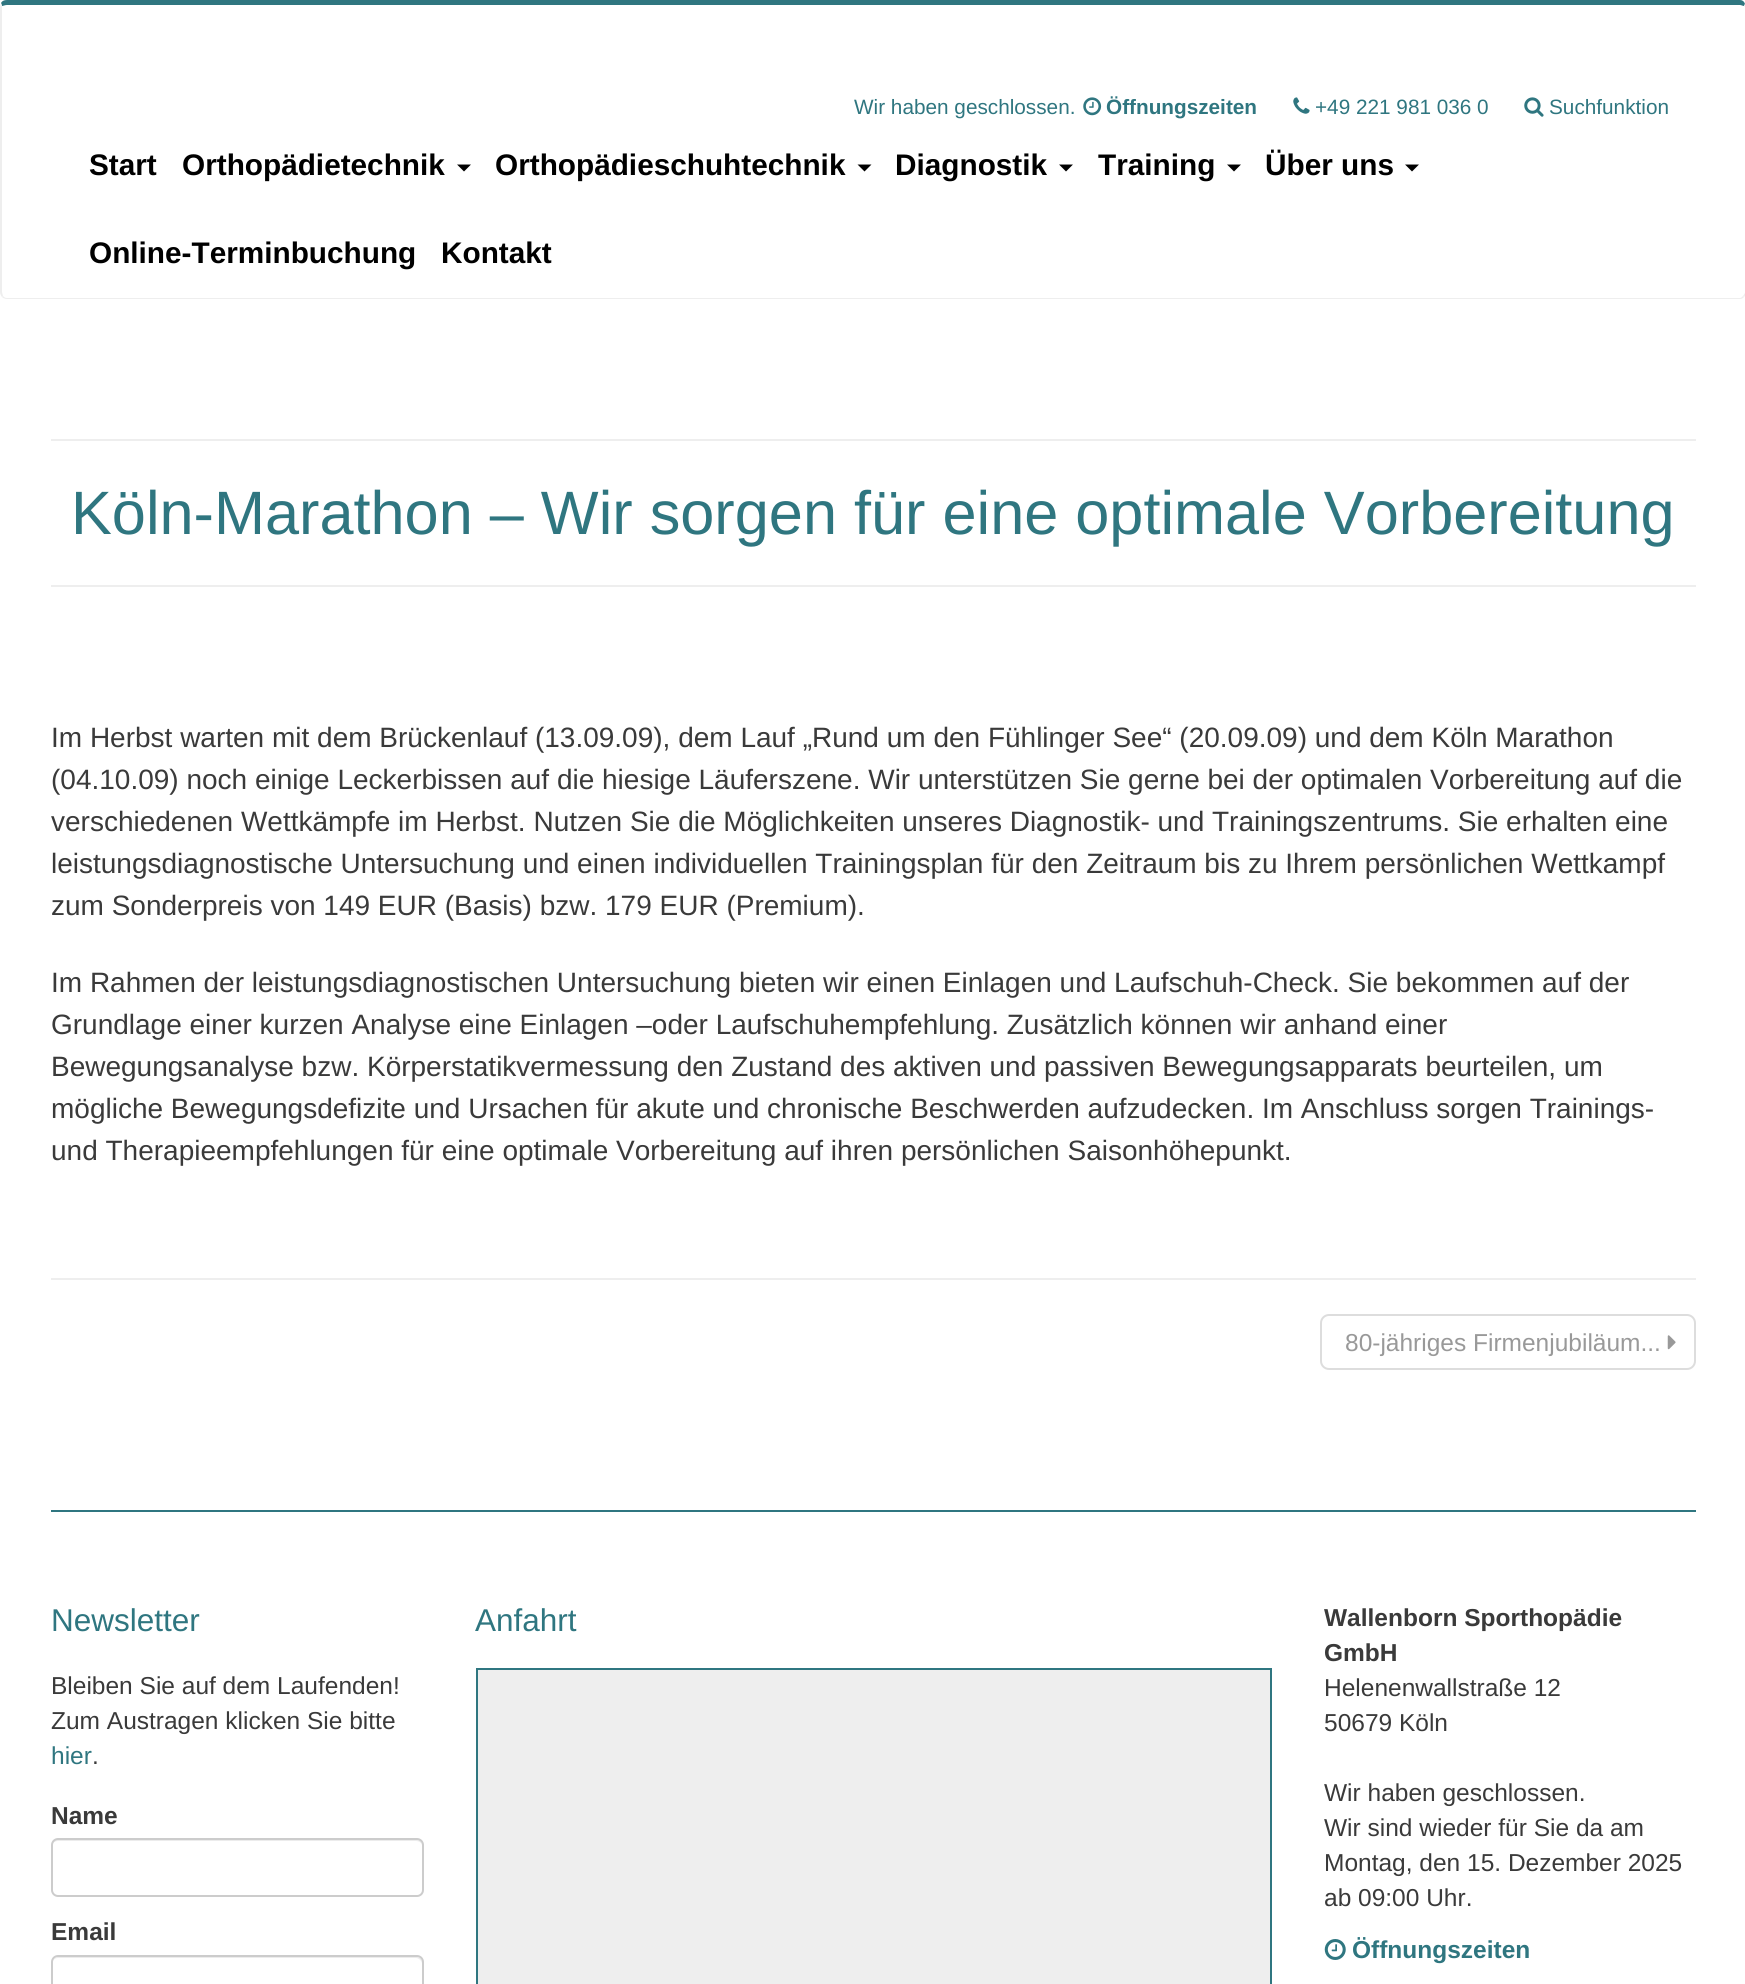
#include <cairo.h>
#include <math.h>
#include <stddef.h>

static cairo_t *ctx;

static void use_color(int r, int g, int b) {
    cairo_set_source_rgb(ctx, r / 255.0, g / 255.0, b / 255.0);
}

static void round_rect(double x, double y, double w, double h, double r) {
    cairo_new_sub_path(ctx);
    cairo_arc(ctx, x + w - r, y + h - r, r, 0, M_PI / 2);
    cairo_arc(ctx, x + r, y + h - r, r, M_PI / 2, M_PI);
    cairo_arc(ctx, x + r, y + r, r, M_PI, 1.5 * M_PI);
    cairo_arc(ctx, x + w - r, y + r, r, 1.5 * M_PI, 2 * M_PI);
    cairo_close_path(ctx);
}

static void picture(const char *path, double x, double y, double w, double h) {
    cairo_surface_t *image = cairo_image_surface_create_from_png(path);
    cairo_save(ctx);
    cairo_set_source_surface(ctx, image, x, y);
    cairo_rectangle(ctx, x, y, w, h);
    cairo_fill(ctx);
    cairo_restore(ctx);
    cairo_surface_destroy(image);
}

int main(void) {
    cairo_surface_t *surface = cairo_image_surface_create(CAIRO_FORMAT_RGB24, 1745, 1984);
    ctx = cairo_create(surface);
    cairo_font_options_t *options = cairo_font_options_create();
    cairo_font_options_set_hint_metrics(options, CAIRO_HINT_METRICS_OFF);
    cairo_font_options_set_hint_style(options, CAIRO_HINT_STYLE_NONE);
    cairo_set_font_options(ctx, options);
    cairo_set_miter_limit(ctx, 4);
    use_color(255, 255, 255);
    cairo_paint(ctx);
    use_color(47, 118, 128);
    cairo_new_path(ctx);
    cairo_move_to(ctx, 7, 0);
    cairo_curve_to(ctx, 4, 0, 2, 1, 1, 3);
    cairo_line_to(ctx, 2, 6);
    cairo_curve_to(ctx, 3, 6, 5, 5, 7, 5);
    cairo_line_to(ctx, 1740, 5);
    cairo_curve_to(ctx, 1741, 5, 1743, 6, 1744, 6);
    cairo_line_to(ctx, 1745, 4);
    cairo_curve_to(ctx, 1744, 1, 1742, 0, 1740, 0);
    cairo_close_path(ctx);
    cairo_fill(ctx);
    use_color(238, 238, 238);
    cairo_new_path(ctx);
    cairo_move_to(ctx, 1745, 4);
    cairo_line_to(ctx, 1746, 7);
    cairo_line_to(ctx, 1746, 292);
    cairo_curve_to(ctx, 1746, 294, 1745, 296, 1744, 297);
    cairo_line_to(ctx, 1743, 296);
    cairo_line_to(ctx, 1745, 293);
    cairo_line_to(ctx, 1745, 54);
    cairo_curve_to(ctx, 1745, 38, 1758, 16, 1744, 6);
    cairo_close_path(ctx);
    cairo_fill(ctx);
    cairo_new_path(ctx);
    cairo_move_to(ctx, 1744, 297);
    cairo_curve_to(ctx, 1743, 298, 1742, 299, 1740, 299);
    cairo_line_to(ctx, 7, 299);
    cairo_curve_to(ctx, 5, 299, 3, 298, 2, 297);
    cairo_line_to(ctx, 3, 296);
    cairo_curve_to(ctx, 4, 297, 5, 298, 7, 298);
    cairo_line_to(ctx, 1740, 298);
    cairo_curve_to(ctx, 1741, 298, 1742, 297, 1743, 296);
    cairo_close_path(ctx);
    cairo_fill(ctx);
    cairo_new_path(ctx);
    cairo_move_to(ctx, 0, 7);
    cairo_line_to(ctx, 0, 292);
    cairo_curve_to(ctx, 0, 294, 1, 296, 2, 297);
    cairo_line_to(ctx, 3, 296);
    cairo_line_to(ctx, 2, 292);
    cairo_line_to(ctx, 2, 6);
    cairo_line_to(ctx, 1, 3);
    cairo_close_path(ctx);
    cairo_fill(ctx);
    cairo_select_font_face(ctx, "Liberation Sans", CAIRO_FONT_SLANT_NORMAL, CAIRO_FONT_WEIGHT_NORMAL);
    cairo_set_font_size(ctx, 20.75);
    use_color(47, 118, 128);
    cairo_move_to(ctx, 854, 114);
    cairo_show_text(ctx, "Wir haben geschlossen.");
    picture("img1.png", 1083, 97, 19, 19);
    cairo_select_font_face(ctx, "Liberation Sans", CAIRO_FONT_SLANT_NORMAL, CAIRO_FONT_WEIGHT_BOLD);
    cairo_move_to(ctx, 1106, 114);
    cairo_show_text(ctx, "Öffnungszeiten");
    picture("img2.png", 1293, 97, 17, 17);
    cairo_select_font_face(ctx, "Liberation Sans", CAIRO_FONT_SLANT_NORMAL, CAIRO_FONT_WEIGHT_NORMAL);
    cairo_move_to(ctx, 1315, 114);
    cairo_show_text(ctx, "+49 221 981 036 0");
    picture("img3.png", 1524, 97, 20, 20);
    cairo_move_to(ctx, 1549, 114);
    cairo_show_text(ctx, "Suchfunktion");
    cairo_select_font_face(ctx, "Liberation Sans", CAIRO_FONT_SLANT_NORMAL, CAIRO_FONT_WEIGHT_BOLD);
    cairo_set_font_size(ctx, 29.75);
    use_color(0, 0, 0);
    cairo_move_to(ctx, 89, 175);
    cairo_show_text(ctx, "Start");
    cairo_move_to(ctx, 182, 175);
    cairo_show_text(ctx, "Orthopädietechnik");
    cairo_new_path(ctx);
    cairo_move_to(ctx, 457, 164.5);
    cairo_line_to(ctx, 471, 164.5);
    cairo_line_to(ctx, 464, 171.5);
    cairo_close_path(ctx);
    cairo_fill(ctx);
    cairo_move_to(ctx, 495, 175);
    cairo_show_text(ctx, "Orthopädieschuhtechnik");
    cairo_new_path(ctx);
    cairo_move_to(ctx, 857.5, 164.5);
    cairo_line_to(ctx, 871.5, 164.5);
    cairo_line_to(ctx, 864.5, 171.5);
    cairo_close_path(ctx);
    cairo_fill(ctx);
    cairo_move_to(ctx, 895, 175);
    cairo_show_text(ctx, "Diagnostik");
    cairo_new_path(ctx);
    cairo_move_to(ctx, 1059, 164.5);
    cairo_line_to(ctx, 1073, 164.5);
    cairo_line_to(ctx, 1066, 171.5);
    cairo_close_path(ctx);
    cairo_fill(ctx);
    cairo_move_to(ctx, 1098, 175);
    cairo_show_text(ctx, "Training");
    cairo_new_path(ctx);
    cairo_move_to(ctx, 1227, 164.5);
    cairo_line_to(ctx, 1241, 164.5);
    cairo_line_to(ctx, 1234, 171.5);
    cairo_close_path(ctx);
    cairo_fill(ctx);
    cairo_move_to(ctx, 1265, 175);
    cairo_show_text(ctx, "Über uns");
    cairo_new_path(ctx);
    cairo_move_to(ctx, 1405, 164.5);
    cairo_line_to(ctx, 1419, 164.5);
    cairo_line_to(ctx, 1412, 171.5);
    cairo_close_path(ctx);
    cairo_fill(ctx);
    cairo_move_to(ctx, 89, 263);
    cairo_show_text(ctx, "Online-Terminbuchung");
    cairo_move_to(ctx, 441, 263);
    cairo_show_text(ctx, "Kontakt");
    use_color(238, 238, 238);
    cairo_rectangle(ctx, 51, 439, 1645, 2);
    cairo_fill(ctx);
    cairo_rectangle(ctx, 51, 585, 1645, 2);
    cairo_fill(ctx);
    cairo_select_font_face(ctx, "Liberation Sans", CAIRO_FONT_SLANT_NORMAL, CAIRO_FONT_WEIGHT_NORMAL);
    cairo_set_font_size(ctx, 61.25);
    use_color(47, 118, 128);
    cairo_move_to(ctx, 71, 534);
    cairo_show_text(ctx, "Köln-Marathon – Wir sorgen für eine optimale Vorbereitung");
    cairo_set_font_size(ctx, 28);
    use_color(58, 58, 58);
    cairo_move_to(ctx, 51, 747);
    cairo_show_text(ctx, "Im Herbst warten mit dem Brückenlauf (13.09.09), dem Lauf „Rund um den Fühlinger See“ (20.09.09) und dem Köln Marathon");
    cairo_move_to(ctx, 51, 789);
    cairo_show_text(ctx, "(04.10.09) noch einige Leckerbissen auf die hiesige Läuferszene. Wir unterstützen Sie gerne bei der optimalen Vorbereitung auf die");
    cairo_move_to(ctx, 51, 831);
    cairo_show_text(ctx, "verschiedenen Wettkämpfe im Herbst. Nutzen Sie die Möglichkeiten unseres Diagnostik- und Trainingszentrums. Sie erhalten eine");
    cairo_move_to(ctx, 51, 873);
    cairo_show_text(ctx, "leistungsdiagnostische Untersuchung und einen individuellen Trainingsplan für den Zeitraum bis zu Ihrem persönlichen Wettkampf");
    cairo_move_to(ctx, 51, 915);
    cairo_show_text(ctx, "zum Sonderpreis von 149 EUR (Basis) bzw. 179 EUR (Premium).");
    cairo_move_to(ctx, 51, 992);
    cairo_show_text(ctx, "Im Rahmen der leistungsdiagnostischen Untersuchung bieten wir einen Einlagen und Laufschuh-Check. Sie bekommen auf der");
    cairo_move_to(ctx, 51, 1034);
    cairo_show_text(ctx, "Grundlage einer kurzen Analyse eine Einlagen –oder Laufschuhempfehlung. Zusätzlich können wir anhand einer");
    cairo_move_to(ctx, 51, 1076);
    cairo_show_text(ctx, "Bewegungsanalyse bzw. Körperstatikvermessung den Zustand des aktiven und passiven Bewegungsapparats beurteilen, um");
    cairo_move_to(ctx, 51, 1118);
    cairo_show_text(ctx, "mögliche Bewegungsdefizite und Ursachen für akute und chronische Beschwerden aufzudecken. Im Anschluss sorgen Trainings-");
    cairo_move_to(ctx, 51, 1160);
    cairo_show_text(ctx, "und Therapieempfehlungen für eine optimale Vorbereitung auf ihren persönlichen Saisonhöhepunkt.");
    use_color(238, 238, 238);
    cairo_rectangle(ctx, 51, 1278, 1645, 2);
    cairo_fill(ctx);
    round_rect(1321, 1315, 374, 54, 8);
    use_color(221, 221, 221);
    cairo_stroke(ctx);
    cairo_set_font_size(ctx, 24.5);
    use_color(153, 153, 153);
    cairo_move_to(ctx, 1345, 1351);
    cairo_show_text(ctx, "80-jähriges Firmenjubiläum...");
    picture("img4.png", 1667, 1335, 9, 15);
    use_color(47, 118, 128);
    cairo_rectangle(ctx, 51, 1510, 1645, 2);
    cairo_fill(ctx);
    cairo_set_font_size(ctx, 31.5);
    cairo_move_to(ctx, 51, 1631);
    cairo_show_text(ctx, "Newsletter");
    cairo_set_font_size(ctx, 24.5);
    use_color(58, 58, 58);
    cairo_move_to(ctx, 51, 1694);
    cairo_show_text(ctx, "Bleiben Sie auf dem Laufenden!");
    cairo_move_to(ctx, 51, 1729);
    cairo_show_text(ctx, "Zum Austragen klicken Sie bitte");
    use_color(47, 118, 128);
    cairo_move_to(ctx, 51, 1764);
    cairo_show_text(ctx, "hier");
    use_color(58, 58, 58);
    cairo_move_to(ctx, 92, 1764);
    cairo_show_text(ctx, ".");
    cairo_select_font_face(ctx, "Liberation Sans", CAIRO_FONT_SLANT_NORMAL, CAIRO_FONT_WEIGHT_BOLD);
    cairo_move_to(ctx, 51, 1824);
    cairo_show_text(ctx, "Name");
    use_color(236, 236, 236);
    cairo_new_path(ctx);
    cairo_move_to(ctx, 58, 1841);
    cairo_line_to(ctx, 416, 1841);
    cairo_curve_to(ctx, 419, 1841, 422, 1843, 422, 1846);
    cairo_curve_to(ctx, 422, 1843, 421, 1839, 417, 1839);
    cairo_line_to(ctx, 58, 1839);
    cairo_curve_to(ctx, 56, 1839, 53, 1841, 53, 1843);
    cairo_curve_to(ctx, 54, 1842, 56, 1841, 58, 1841);
    cairo_close_path(ctx);
    cairo_fill(ctx);
    round_rect(52, 1839, 371, 57, 6);
    use_color(204, 204, 204);
    cairo_stroke(ctx);
    use_color(58, 58, 58);
    cairo_move_to(ctx, 51, 1940);
    cairo_show_text(ctx, "Email");
    use_color(236, 236, 236);
    cairo_new_path(ctx);
    cairo_move_to(ctx, 58, 1958);
    cairo_line_to(ctx, 416, 1958);
    cairo_curve_to(ctx, 419, 1958, 422, 1961, 422, 1964);
    cairo_line_to(ctx, 422, 1962);
    cairo_curve_to(ctx, 422, 1959, 420, 1957, 417, 1957);
    cairo_line_to(ctx, 58, 1957);
    cairo_curve_to(ctx, 56, 1957, 54, 1959, 53, 1961);
    cairo_curve_to(ctx, 54, 1959, 56, 1958, 58, 1958);
    cairo_close_path(ctx);
    cairo_fill(ctx);
    round_rect(52, 1956, 371, 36, 6);
    use_color(204, 204, 204);
    cairo_stroke(ctx);
    cairo_select_font_face(ctx, "Liberation Sans", CAIRO_FONT_SLANT_NORMAL, CAIRO_FONT_WEIGHT_NORMAL);
    cairo_set_font_size(ctx, 31.5);
    use_color(47, 118, 128);
    cairo_move_to(ctx, 475, 1631);
    cairo_show_text(ctx, "Anfahrt");
    use_color(238, 238, 238);
    cairo_rectangle(ctx, 477, 1669, 794, 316);
    cairo_fill_preserve(ctx);
    use_color(47, 118, 128);
    cairo_stroke(ctx);
    cairo_select_font_face(ctx, "Liberation Sans", CAIRO_FONT_SLANT_NORMAL, CAIRO_FONT_WEIGHT_BOLD);
    cairo_set_font_size(ctx, 24.5);
    use_color(58, 58, 58);
    cairo_move_to(ctx, 1324, 1626);
    cairo_show_text(ctx, "Wallenborn Sporthopädie");
    cairo_move_to(ctx, 1324, 1661);
    cairo_show_text(ctx, "GmbH");
    cairo_select_font_face(ctx, "Liberation Sans", CAIRO_FONT_SLANT_NORMAL, CAIRO_FONT_WEIGHT_NORMAL);
    cairo_move_to(ctx, 1324, 1696);
    cairo_show_text(ctx, "Helenenwallstraße 12");
    cairo_move_to(ctx, 1324, 1731);
    cairo_show_text(ctx, "50679 Köln");
    cairo_move_to(ctx, 1324, 1801);
    cairo_show_text(ctx, "Wir haben geschlossen.");
    cairo_move_to(ctx, 1324, 1836);
    cairo_show_text(ctx, "Wir sind wieder für Sie da am");
    cairo_move_to(ctx, 1324, 1871);
    cairo_show_text(ctx, "Montag, den 15. Dezember 2025");
    cairo_move_to(ctx, 1324, 1906);
    cairo_show_text(ctx, "ab 09:00 Uhr.");
    picture("img5.png", 1324, 1939, 22, 21);
    cairo_select_font_face(ctx, "Liberation Sans", CAIRO_FONT_SLANT_NORMAL, CAIRO_FONT_WEIGHT_BOLD);
    use_color(47, 118, 128);
    cairo_move_to(ctx, 1352, 1958);
    cairo_show_text(ctx, "Öffnungszeiten");
    cairo_surface_write_to_png(surface, "result.png");
    cairo_font_options_destroy(options);
    cairo_destroy(ctx);
    cairo_surface_destroy(surface);
    return 0;
}
